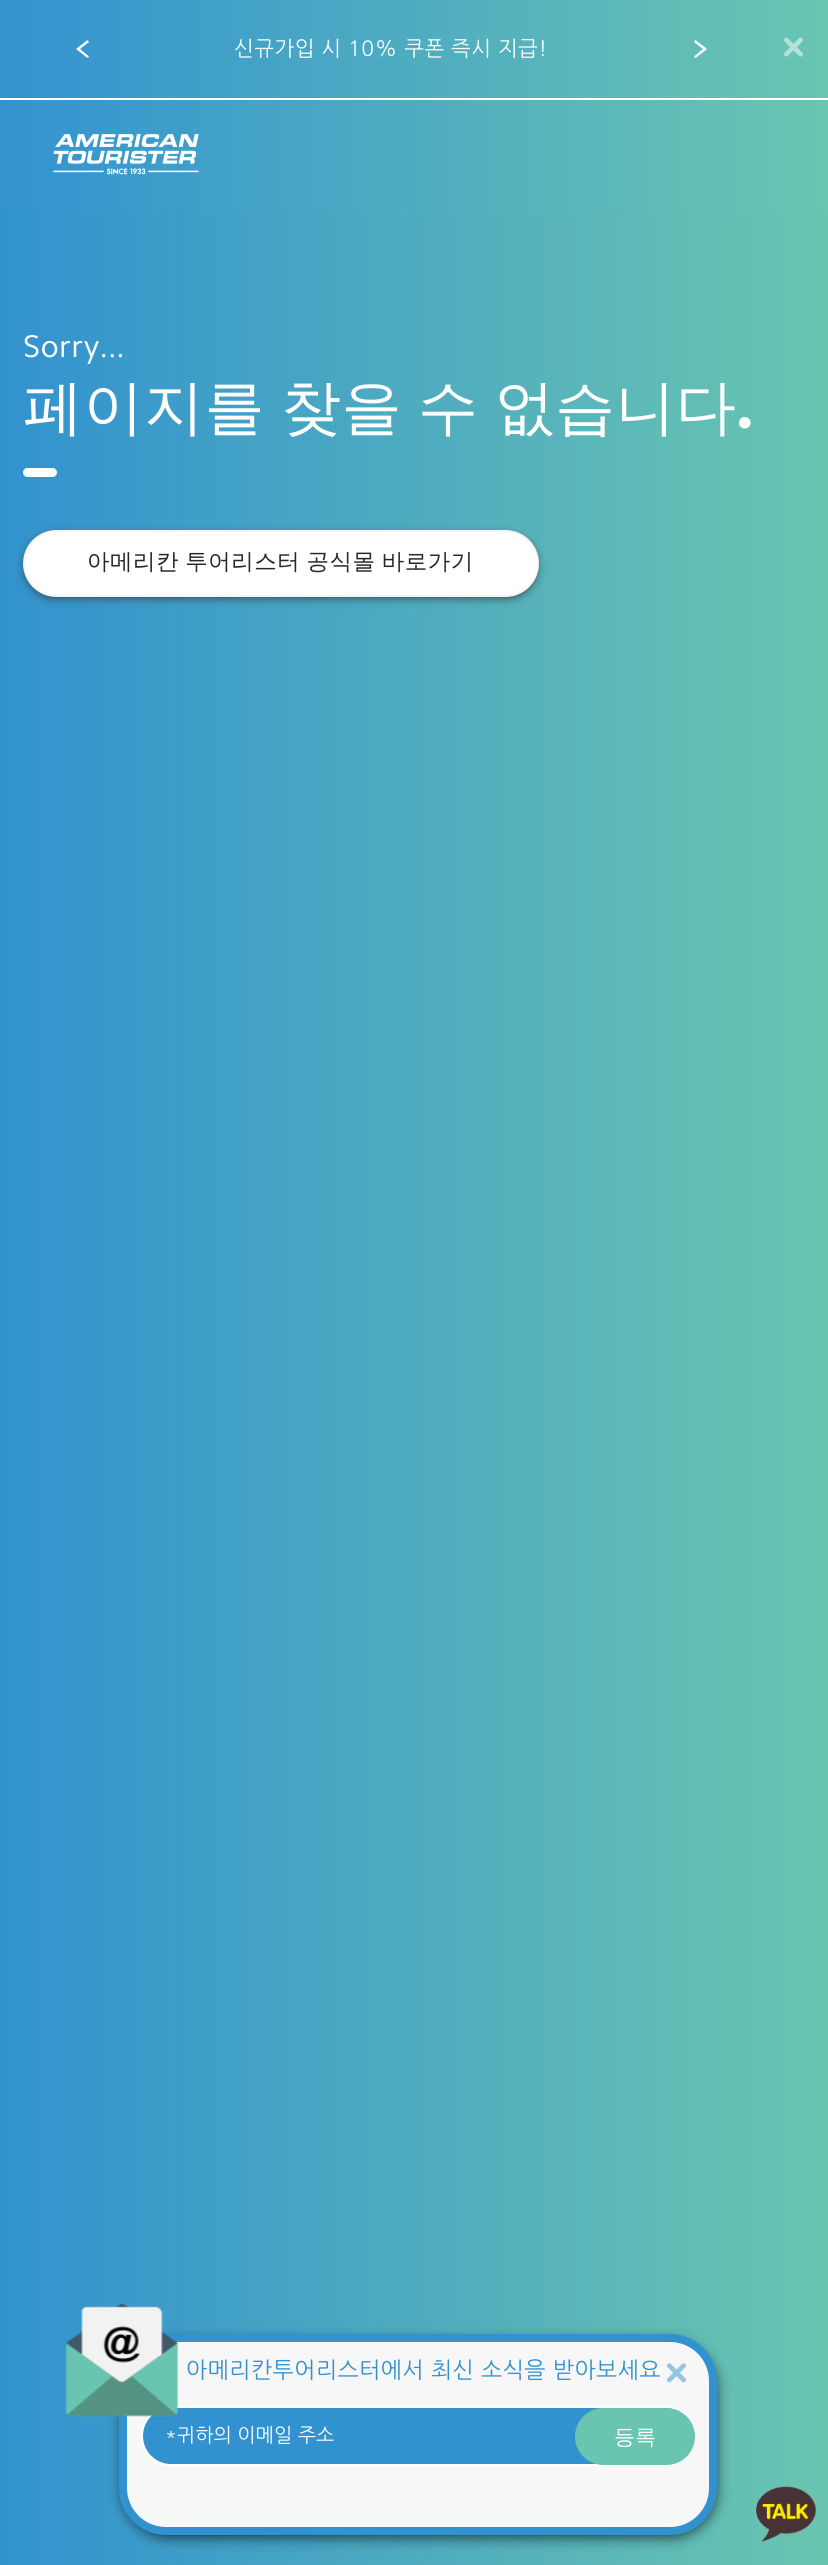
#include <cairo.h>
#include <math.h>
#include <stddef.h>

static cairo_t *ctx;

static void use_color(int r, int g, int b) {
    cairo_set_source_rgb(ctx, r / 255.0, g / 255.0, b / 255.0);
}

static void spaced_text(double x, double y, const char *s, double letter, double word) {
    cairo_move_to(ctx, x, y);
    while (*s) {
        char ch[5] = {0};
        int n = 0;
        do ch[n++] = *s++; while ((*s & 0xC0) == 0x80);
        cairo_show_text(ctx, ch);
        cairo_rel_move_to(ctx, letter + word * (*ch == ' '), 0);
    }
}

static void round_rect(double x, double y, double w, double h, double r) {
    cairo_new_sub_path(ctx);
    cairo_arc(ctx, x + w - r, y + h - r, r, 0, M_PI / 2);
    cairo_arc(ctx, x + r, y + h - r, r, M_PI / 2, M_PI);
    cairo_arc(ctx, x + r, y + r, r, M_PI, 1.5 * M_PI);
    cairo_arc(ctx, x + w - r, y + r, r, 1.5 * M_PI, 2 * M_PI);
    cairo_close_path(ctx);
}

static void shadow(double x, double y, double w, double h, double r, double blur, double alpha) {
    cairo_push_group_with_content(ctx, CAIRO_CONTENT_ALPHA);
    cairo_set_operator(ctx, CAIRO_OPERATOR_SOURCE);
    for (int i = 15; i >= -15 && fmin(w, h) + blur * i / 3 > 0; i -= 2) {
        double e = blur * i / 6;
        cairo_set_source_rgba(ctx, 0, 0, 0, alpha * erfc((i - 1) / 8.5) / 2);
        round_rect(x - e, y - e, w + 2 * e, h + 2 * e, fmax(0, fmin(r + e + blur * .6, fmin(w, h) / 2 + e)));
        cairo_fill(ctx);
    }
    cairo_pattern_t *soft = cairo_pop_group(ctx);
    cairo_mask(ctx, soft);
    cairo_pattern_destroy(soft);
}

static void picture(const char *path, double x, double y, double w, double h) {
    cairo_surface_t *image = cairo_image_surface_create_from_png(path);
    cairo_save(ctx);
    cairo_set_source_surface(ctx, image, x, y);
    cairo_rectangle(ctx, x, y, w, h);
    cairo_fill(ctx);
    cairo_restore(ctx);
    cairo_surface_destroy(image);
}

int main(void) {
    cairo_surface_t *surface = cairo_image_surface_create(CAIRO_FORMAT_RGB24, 828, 2565);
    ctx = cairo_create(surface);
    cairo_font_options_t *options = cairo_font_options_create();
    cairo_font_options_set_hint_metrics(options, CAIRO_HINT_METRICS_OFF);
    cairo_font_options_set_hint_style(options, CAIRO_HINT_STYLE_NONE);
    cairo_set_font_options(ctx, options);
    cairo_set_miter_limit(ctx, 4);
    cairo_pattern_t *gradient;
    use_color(255, 255, 255);
    cairo_paint(ctx);
    gradient = cairo_pattern_create_linear(0, 106, 828, 106);
    cairo_pattern_add_color_stop_rgba(gradient, 0, 0.2, 0.576, 0.816, 1);
    cairo_pattern_add_color_stop_rgba(gradient, 1, 0.416, 0.776, 0.694, 1);
    cairo_set_source(ctx, gradient);
    cairo_pattern_destroy(gradient);
    cairo_rectangle(ctx, 0, 0, 828, 212);
    cairo_fill(ctx);
    use_color(255, 255, 255);
    cairo_rectangle(ctx, 0, 98, 828, 2);
    cairo_fill(ctx);
    cairo_new_path(ctx);
    cairo_move_to(ctx, 89, 42);
    cairo_line_to(ctx, 87.5, 40);
    cairo_line_to(ctx, 76, 49);
    cairo_line_to(ctx, 87.5, 58);
    cairo_line_to(ctx, 89, 56.5);
    cairo_line_to(ctx, 80, 49);
    cairo_close_path(ctx);
    cairo_fill(ctx);
    cairo_select_font_face(ctx, "NanumGothic", CAIRO_FONT_SLANT_NORMAL, CAIRO_FONT_WEIGHT_NORMAL);
    cairo_set_font_size(ctx, 21);
    spaced_text(234, 56, "신규가입 시 10% 쿠폰 즉시 지급!", 0.5, 0);
    cairo_new_path(ctx);
    cairo_move_to(ctx, 694, 56.5);
    cairo_line_to(ctx, 695.5, 58);
    cairo_line_to(ctx, 707, 49);
    cairo_line_to(ctx, 695.5, 40);
    cairo_line_to(ctx, 694, 42);
    cairo_line_to(ctx, 703, 49);
    cairo_close_path(ctx);
    cairo_fill(ctx);
    picture("img1.png", 784, 37, 19, 20);
    picture("img2.png", 53, 134, 146, 41);
    gradient = cairo_pattern_create_linear(0, 1494, 828, 1494);
    cairo_pattern_add_color_stop_rgba(gradient, 0, 0.196, 0.573, 0.812, 1);
    cairo_pattern_add_color_stop_rgba(gradient, 1, 0.416, 0.773, 0.69, 1);
    cairo_set_source(ctx, gradient);
    cairo_pattern_destroy(gradient);
    cairo_rectangle(ctx, 0, 212, 828, 2353);
    cairo_fill(ctx);
    cairo_select_font_face(ctx, "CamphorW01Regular", CAIRO_FONT_SLANT_NORMAL, CAIRO_FONT_WEIGHT_NORMAL);
    cairo_set_font_size(ctx, 31.5);
    use_color(255, 255, 255);
    spaced_text(23, 357, "Sorry...", 0.5, 0);
    cairo_select_font_face(ctx, "WenQuanYi Zen Hei Medium", CAIRO_FONT_SLANT_NORMAL, CAIRO_FONT_WEIGHT_NORMAL);
    cairo_set_font_size(ctx, 60);
    spaced_text(23, 428, "페이지를 찾을 수 없습니다", 0.5, -2.5);
    cairo_select_font_face(ctx, "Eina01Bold", CAIRO_FONT_SLANT_NORMAL, CAIRO_FONT_WEIGHT_BOLD);
    spaced_text(737, 428, ".", 0.5, 0);
    round_rect(23, 468, 34, 9, 4.5);
    cairo_fill(ctx);
    use_color(51, 51, 51);
    shadow(26, 536, 510, 61, 30.5, 5, 1);
    use_color(255, 255, 255);
    round_rect(24, 531, 514, 65, 32.5);
    cairo_fill_preserve(ctx);
    use_color(245, 245, 245);
    cairo_stroke(ctx);
    cairo_select_font_face(ctx, "WenQuanYi Zen Hei Medium", CAIRO_FONT_SLANT_NORMAL, CAIRO_FONT_WEIGHT_NORMAL);
    cairo_set_font_size(ctx, 22.5);
    use_color(39, 39, 39);
    spaced_text(87, 569, "아메리칸 투어리스터 공식몰 바로가기", 0.5, -1);
    use_color(0, 0, 0);
    shadow(123, 2342, 593, 195, 44, 7, 0.7);
    use_color(247, 247, 247);
    round_rect(123, 2338, 590, 193, 43);
    cairo_fill_preserve(ctx);
    use_color(50, 146, 207);
    cairo_set_line_width(ctx, 8);
    cairo_stroke(ctx);
    round_rect(142, 2407, 552, 58, 29);
    cairo_fill_preserve(ctx);
    use_color(255, 255, 255);
    cairo_set_line_width(ctx, 2);
    cairo_stroke(ctx);
    picture("img3.png", 65, 2304, 114, 113);
    cairo_select_font_face(ctx, "NanumGothic", CAIRO_FONT_SLANT_NORMAL, CAIRO_FONT_WEIGHT_NORMAL);
    use_color(50, 146, 207);
    spaced_text(186, 2378, "아메리칸투어리스터에서 최신 소식을 받아보세요", 0.5, 0);
    cairo_set_font_size(ctx, 19.5);
    use_color(255, 255, 255);
    cairo_move_to(ctx, 165, 2442);
    cairo_show_text(ctx, "*귀하의 이메일 주소");
    use_color(106, 197, 176);
    round_rect(575, 2408, 120, 57, 28.5);
    cairo_fill(ctx);
    cairo_select_font_face(ctx, "WenQuanYi Zen Hei Medium", CAIRO_FONT_SLANT_NORMAL, CAIRO_FONT_WEIGHT_NORMAL);
    cairo_set_font_size(ctx, 21);
    use_color(255, 255, 255);
    cairo_move_to(ctx, 614, 2444);
    cairo_show_text(ctx, "등록");
    picture("img4.png", 667, 2363, 19, 20);
    picture("img5.png", 756, 2486, 60, 56);
    cairo_surface_write_to_png(surface, "result.png");
    cairo_font_options_destroy(options);
    cairo_destroy(ctx);
    cairo_surface_destroy(surface);
    return 0;
}
